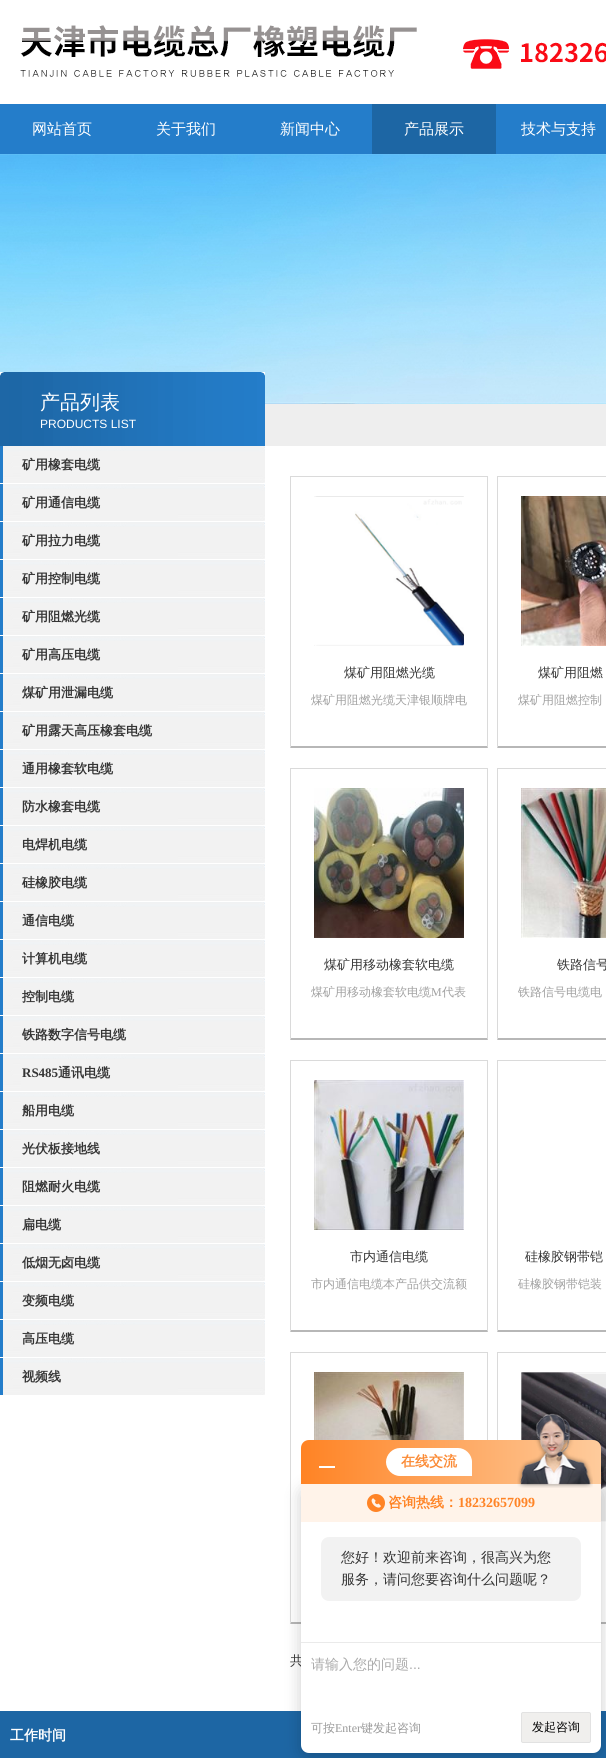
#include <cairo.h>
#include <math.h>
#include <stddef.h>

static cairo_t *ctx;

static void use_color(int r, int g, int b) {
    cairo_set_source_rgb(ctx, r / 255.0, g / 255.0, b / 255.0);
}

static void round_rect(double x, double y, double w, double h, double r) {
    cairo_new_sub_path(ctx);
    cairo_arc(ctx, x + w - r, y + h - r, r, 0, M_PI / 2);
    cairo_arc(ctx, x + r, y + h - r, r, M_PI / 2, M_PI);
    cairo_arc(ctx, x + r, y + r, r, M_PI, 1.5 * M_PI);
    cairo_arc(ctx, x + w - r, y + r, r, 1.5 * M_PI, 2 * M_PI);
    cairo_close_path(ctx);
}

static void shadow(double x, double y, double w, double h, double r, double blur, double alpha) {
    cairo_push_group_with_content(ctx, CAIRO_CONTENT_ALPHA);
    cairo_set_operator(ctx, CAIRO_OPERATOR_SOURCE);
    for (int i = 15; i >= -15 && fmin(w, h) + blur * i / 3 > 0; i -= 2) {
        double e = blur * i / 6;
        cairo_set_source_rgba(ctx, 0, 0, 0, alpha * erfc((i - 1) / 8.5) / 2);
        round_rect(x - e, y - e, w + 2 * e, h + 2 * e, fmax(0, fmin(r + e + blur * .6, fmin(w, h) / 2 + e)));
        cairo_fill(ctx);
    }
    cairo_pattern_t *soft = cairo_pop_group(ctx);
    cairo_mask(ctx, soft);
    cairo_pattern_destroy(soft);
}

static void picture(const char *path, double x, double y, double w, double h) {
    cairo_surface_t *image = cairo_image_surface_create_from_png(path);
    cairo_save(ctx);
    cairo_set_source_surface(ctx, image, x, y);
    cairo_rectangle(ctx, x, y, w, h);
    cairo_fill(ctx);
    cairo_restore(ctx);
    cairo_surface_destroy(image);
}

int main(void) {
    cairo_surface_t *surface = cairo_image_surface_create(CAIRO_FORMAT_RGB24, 606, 1758);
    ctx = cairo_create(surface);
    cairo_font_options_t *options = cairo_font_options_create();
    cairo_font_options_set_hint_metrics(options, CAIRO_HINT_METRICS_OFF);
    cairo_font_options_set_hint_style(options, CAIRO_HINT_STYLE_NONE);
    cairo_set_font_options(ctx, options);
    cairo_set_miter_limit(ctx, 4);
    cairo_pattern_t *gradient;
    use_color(255, 255, 255);
    cairo_paint(ctx);
    use_color(238, 238, 238);
    cairo_rectangle(ctx, 265, 404, 341, 42);
    cairo_fill(ctx);
    picture("img1.png", 20, 25, 586, 52);
    use_color(36, 125, 202);
    cairo_rectangle(ctx, 0, 104, 606, 50);
    cairo_fill(ctx);
    cairo_select_font_face(ctx, "WenQuanYi Zen Hei Medium", CAIRO_FONT_SLANT_NORMAL, CAIRO_FONT_WEIGHT_NORMAL);
    cairo_set_font_size(ctx, 15);
    use_color(255, 255, 255);
    cairo_move_to(ctx, 32, 134);
    cairo_show_text(ctx, "网站首页");
    cairo_move_to(ctx, 156, 134);
    cairo_show_text(ctx, "关于我们");
    cairo_move_to(ctx, 280, 134);
    cairo_show_text(ctx, "新闻中心");
    use_color(29, 102, 164);
    cairo_rectangle(ctx, 372, 104, 124, 50);
    cairo_fill(ctx);
    use_color(255, 255, 255);
    cairo_move_to(ctx, 404, 134);
    cairo_show_text(ctx, "产品展示");
    cairo_move_to(ctx, 521, 134);
    cairo_show_text(ctx, "技术与支持");
    picture("img2.png", 0, 154, 606, 250);
    picture("img3.png", 0, 372, 265, 74);
    cairo_set_font_size(ctx, 20);
    cairo_move_to(ctx, 40, 409);
    cairo_show_text(ctx, "产品列表");
    cairo_select_font_face(ctx, "Liberation Sans", CAIRO_FONT_SLANT_NORMAL, CAIRO_FONT_WEIGHT_NORMAL);
    cairo_set_font_size(ctx, 12);
    cairo_move_to(ctx, 40, 428);
    cairo_show_text(ctx, "PRODUCTS LIST");
    picture("img4.png", 0, 446, 265, 37);
    cairo_select_font_face(ctx, "WenQuanYi Zen Hei", CAIRO_FONT_SLANT_NORMAL, CAIRO_FONT_WEIGHT_BOLD);
    cairo_set_font_size(ctx, 13);
    use_color(53, 53, 53);
    cairo_move_to(ctx, 22, 469);
    cairo_show_text(ctx, "矿用橡套电缆");
    picture("img4.png", 0, 484, 265, 37);
    cairo_move_to(ctx, 22, 507);
    cairo_show_text(ctx, "矿用通信电缆");
    picture("img4.png", 0, 522, 265, 37);
    cairo_move_to(ctx, 22, 545);
    cairo_show_text(ctx, "矿用拉力电缆");
    picture("img4.png", 0, 560, 265, 37);
    cairo_move_to(ctx, 22, 583);
    cairo_show_text(ctx, "矿用控制电缆");
    picture("img4.png", 0, 598, 265, 37);
    cairo_move_to(ctx, 22, 621);
    cairo_show_text(ctx, "矿用阻燃光缆");
    picture("img4.png", 0, 636, 265, 37);
    cairo_move_to(ctx, 22, 659);
    cairo_show_text(ctx, "矿用高压电缆");
    picture("img4.png", 0, 674, 265, 37);
    cairo_move_to(ctx, 22, 697);
    cairo_show_text(ctx, "煤矿用泄漏电缆");
    picture("img4.png", 0, 712, 265, 37);
    cairo_move_to(ctx, 22, 735);
    cairo_show_text(ctx, "矿用露天高压橡套电缆");
    picture("img4.png", 0, 750, 265, 37);
    cairo_move_to(ctx, 22, 773);
    cairo_show_text(ctx, "通用橡套软电缆");
    picture("img4.png", 0, 788, 265, 37);
    cairo_move_to(ctx, 22, 811);
    cairo_show_text(ctx, "防水橡套电缆");
    picture("img4.png", 0, 826, 265, 37);
    cairo_move_to(ctx, 22, 849);
    cairo_show_text(ctx, "电焊机电缆");
    picture("img4.png", 0, 864, 265, 37);
    cairo_move_to(ctx, 22, 887);
    cairo_show_text(ctx, "硅橡胶电缆");
    picture("img4.png", 0, 902, 265, 37);
    cairo_move_to(ctx, 22, 925);
    cairo_show_text(ctx, "通信电缆");
    picture("img4.png", 0, 940, 265, 37);
    cairo_move_to(ctx, 22, 963);
    cairo_show_text(ctx, "计算机电缆");
    picture("img4.png", 0, 978, 265, 37);
    cairo_move_to(ctx, 22, 1001);
    cairo_show_text(ctx, "控制电缆");
    picture("img4.png", 0, 1016, 265, 37);
    cairo_move_to(ctx, 22, 1039);
    cairo_show_text(ctx, "铁路数字信号电缆");
    picture("img4.png", 0, 1054, 265, 37);
    cairo_select_font_face(ctx, "Liberation Serif", CAIRO_FONT_SLANT_NORMAL, CAIRO_FONT_WEIGHT_BOLD);
    cairo_move_to(ctx, 22, 1077);
    cairo_show_text(ctx, "RS485");
    cairo_select_font_face(ctx, "WenQuanYi Zen Hei", CAIRO_FONT_SLANT_NORMAL, CAIRO_FONT_WEIGHT_BOLD);
    cairo_move_to(ctx, 58, 1077);
    cairo_show_text(ctx, "通讯电缆");
    picture("img4.png", 0, 1092, 265, 37);
    cairo_move_to(ctx, 22, 1115);
    cairo_show_text(ctx, "船用电缆");
    picture("img4.png", 0, 1130, 265, 37);
    cairo_move_to(ctx, 22, 1153);
    cairo_show_text(ctx, "光伏板接地线");
    picture("img4.png", 0, 1168, 265, 37);
    cairo_move_to(ctx, 22, 1191);
    cairo_show_text(ctx, "阻燃耐火电缆");
    picture("img4.png", 0, 1206, 265, 37);
    cairo_move_to(ctx, 22, 1229);
    cairo_show_text(ctx, "扁电缆");
    picture("img4.png", 0, 1244, 265, 37);
    cairo_move_to(ctx, 22, 1267);
    cairo_show_text(ctx, "低烟无卤电缆");
    picture("img4.png", 0, 1282, 265, 37);
    cairo_move_to(ctx, 22, 1305);
    cairo_show_text(ctx, "变频电缆");
    picture("img4.png", 0, 1320, 265, 37);
    cairo_move_to(ctx, 22, 1343);
    cairo_show_text(ctx, "高压电缆");
    picture("img4.png", 0, 1358, 265, 37);
    cairo_move_to(ctx, 22, 1381);
    cairo_show_text(ctx, "视频线");
    use_color(218, 218, 218);
    cairo_rectangle(ctx, 290, 476, 198, 1);
    cairo_fill(ctx);
    cairo_new_path(ctx);
    cairo_move_to(ctx, 488, 476);
    cairo_line_to(ctx, 488, 748);
    cairo_line_to(ctx, 487, 746);
    cairo_line_to(ctx, 487, 477);
    cairo_close_path(ctx);
    cairo_fill(ctx);
    use_color(183, 183, 183);
    cairo_new_path(ctx);
    cairo_move_to(ctx, 488, 748);
    cairo_line_to(ctx, 290, 748);
    cairo_line_to(ctx, 291, 746);
    cairo_line_to(ctx, 487, 746);
    cairo_close_path(ctx);
    cairo_fill(ctx);
    use_color(218, 218, 218);
    cairo_new_path(ctx);
    cairo_move_to(ctx, 290, 748);
    cairo_line_to(ctx, 290, 476);
    cairo_line_to(ctx, 291, 477);
    cairo_line_to(ctx, 291, 746);
    cairo_close_path(ctx);
    cairo_fill(ctx);
    picture("img5.png", 314, 496, 150, 150);
    cairo_select_font_face(ctx, "WenQuanYi Zen Hei Medium", CAIRO_FONT_SLANT_NORMAL, CAIRO_FONT_WEIGHT_NORMAL);
    use_color(53, 53, 53);
    cairo_move_to(ctx, 344, 677);
    cairo_show_text(ctx, "煤矿用阻燃光缆");
    cairo_set_font_size(ctx, 12);
    use_color(161, 161, 161);
    cairo_move_to(ctx, 311, 704);
    cairo_show_text(ctx, "煤矿用阻燃光缆天津银顺牌电");
    use_color(218, 218, 218);
    cairo_rectangle(ctx, 497, 476, 109, 1);
    cairo_fill(ctx);
    use_color(183, 183, 183);
    cairo_new_path(ctx);
    cairo_move_to(ctx, 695, 748);
    cairo_line_to(ctx, 497, 748);
    cairo_line_to(ctx, 498, 746);
    cairo_line_to(ctx, 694, 746);
    cairo_close_path(ctx);
    cairo_fill(ctx);
    use_color(218, 218, 218);
    cairo_new_path(ctx);
    cairo_move_to(ctx, 497, 748);
    cairo_line_to(ctx, 497, 476);
    cairo_line_to(ctx, 498, 477);
    cairo_line_to(ctx, 498, 746);
    cairo_close_path(ctx);
    cairo_fill(ctx);
    picture("img6.png", 521, 496, 85, 150);
    cairo_set_font_size(ctx, 13);
    use_color(53, 53, 53);
    cairo_move_to(ctx, 538, 677);
    cairo_show_text(ctx, "煤矿用阻燃");
    cairo_set_font_size(ctx, 12);
    use_color(161, 161, 161);
    cairo_move_to(ctx, 518, 704);
    cairo_show_text(ctx, "煤矿用阻燃控制");
    use_color(218, 218, 218);
    cairo_rectangle(ctx, 290, 768, 198, 1);
    cairo_fill(ctx);
    cairo_new_path(ctx);
    cairo_move_to(ctx, 488, 768);
    cairo_line_to(ctx, 488, 1040);
    cairo_line_to(ctx, 487, 1038);
    cairo_line_to(ctx, 487, 769);
    cairo_close_path(ctx);
    cairo_fill(ctx);
    use_color(183, 183, 183);
    cairo_new_path(ctx);
    cairo_move_to(ctx, 488, 1040);
    cairo_line_to(ctx, 290, 1040);
    cairo_line_to(ctx, 291, 1038);
    cairo_line_to(ctx, 487, 1038);
    cairo_close_path(ctx);
    cairo_fill(ctx);
    use_color(218, 218, 218);
    cairo_new_path(ctx);
    cairo_move_to(ctx, 290, 1040);
    cairo_line_to(ctx, 290, 768);
    cairo_line_to(ctx, 291, 769);
    cairo_line_to(ctx, 291, 1038);
    cairo_close_path(ctx);
    cairo_fill(ctx);
    picture("img7.png", 314, 788, 150, 150);
    cairo_set_font_size(ctx, 13);
    use_color(53, 53, 53);
    cairo_move_to(ctx, 324, 969);
    cairo_show_text(ctx, "煤矿用移动橡套软电缆");
    cairo_set_font_size(ctx, 12);
    use_color(161, 161, 161);
    cairo_move_to(ctx, 311, 996);
    cairo_show_text(ctx, "煤矿用移动橡套软电缆");
    cairo_select_font_face(ctx, "Liberation Serif", CAIRO_FONT_SLANT_NORMAL, CAIRO_FONT_WEIGHT_NORMAL);
    cairo_move_to(ctx, 431, 996);
    cairo_show_text(ctx, "M");
    cairo_select_font_face(ctx, "WenQuanYi Zen Hei Medium", CAIRO_FONT_SLANT_NORMAL, CAIRO_FONT_WEIGHT_NORMAL);
    cairo_move_to(ctx, 442, 996);
    cairo_show_text(ctx, "代表");
    use_color(218, 218, 218);
    cairo_rectangle(ctx, 497, 768, 109, 1);
    cairo_fill(ctx);
    use_color(183, 183, 183);
    cairo_new_path(ctx);
    cairo_move_to(ctx, 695, 1040);
    cairo_line_to(ctx, 497, 1040);
    cairo_line_to(ctx, 498, 1038);
    cairo_line_to(ctx, 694, 1038);
    cairo_close_path(ctx);
    cairo_fill(ctx);
    use_color(218, 218, 218);
    cairo_new_path(ctx);
    cairo_move_to(ctx, 497, 1040);
    cairo_line_to(ctx, 497, 768);
    cairo_line_to(ctx, 498, 769);
    cairo_line_to(ctx, 498, 1038);
    cairo_close_path(ctx);
    cairo_fill(ctx);
    picture("img8.png", 521, 788, 85, 150);
    cairo_set_font_size(ctx, 13);
    use_color(53, 53, 53);
    cairo_move_to(ctx, 557, 969);
    cairo_show_text(ctx, "铁路信号");
    cairo_set_font_size(ctx, 12);
    use_color(161, 161, 161);
    cairo_move_to(ctx, 518, 996);
    cairo_show_text(ctx, "铁路信号电缆电");
    use_color(218, 218, 218);
    cairo_rectangle(ctx, 290, 1060, 198, 1);
    cairo_fill(ctx);
    cairo_new_path(ctx);
    cairo_move_to(ctx, 488, 1060);
    cairo_line_to(ctx, 488, 1332);
    cairo_line_to(ctx, 487, 1330);
    cairo_line_to(ctx, 487, 1061);
    cairo_close_path(ctx);
    cairo_fill(ctx);
    use_color(183, 183, 183);
    cairo_new_path(ctx);
    cairo_move_to(ctx, 488, 1332);
    cairo_line_to(ctx, 290, 1332);
    cairo_line_to(ctx, 291, 1330);
    cairo_line_to(ctx, 487, 1330);
    cairo_close_path(ctx);
    cairo_fill(ctx);
    use_color(218, 218, 218);
    cairo_new_path(ctx);
    cairo_move_to(ctx, 290, 1332);
    cairo_line_to(ctx, 290, 1060);
    cairo_line_to(ctx, 291, 1061);
    cairo_line_to(ctx, 291, 1330);
    cairo_close_path(ctx);
    cairo_fill(ctx);
    picture("img9.png", 314, 1080, 150, 150);
    cairo_set_font_size(ctx, 13);
    use_color(53, 53, 53);
    cairo_move_to(ctx, 350, 1261);
    cairo_show_text(ctx, "市内通信电缆");
    cairo_set_font_size(ctx, 12);
    use_color(161, 161, 161);
    cairo_move_to(ctx, 311, 1288);
    cairo_show_text(ctx, "市内通信电缆本产品供交流额");
    use_color(218, 218, 218);
    cairo_rectangle(ctx, 497, 1060, 109, 1);
    cairo_fill(ctx);
    use_color(183, 183, 183);
    cairo_new_path(ctx);
    cairo_move_to(ctx, 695, 1332);
    cairo_line_to(ctx, 497, 1332);
    cairo_line_to(ctx, 498, 1330);
    cairo_line_to(ctx, 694, 1330);
    cairo_close_path(ctx);
    cairo_fill(ctx);
    use_color(218, 218, 218);
    cairo_new_path(ctx);
    cairo_move_to(ctx, 497, 1332);
    cairo_line_to(ctx, 497, 1060);
    cairo_line_to(ctx, 498, 1061);
    cairo_line_to(ctx, 498, 1330);
    cairo_close_path(ctx);
    cairo_fill(ctx);
    cairo_set_font_size(ctx, 13);
    use_color(53, 53, 53);
    cairo_move_to(ctx, 525, 1261);
    cairo_show_text(ctx, "硅橡胶钢带铠");
    cairo_set_font_size(ctx, 12);
    use_color(161, 161, 161);
    cairo_move_to(ctx, 518, 1288);
    cairo_show_text(ctx, "硅橡胶钢带铠装");
    use_color(218, 218, 218);
    cairo_rectangle(ctx, 290, 1352, 198, 1);
    cairo_fill(ctx);
    cairo_new_path(ctx);
    cairo_move_to(ctx, 488, 1352);
    cairo_line_to(ctx, 488, 1624);
    cairo_line_to(ctx, 487, 1622);
    cairo_line_to(ctx, 487, 1353);
    cairo_close_path(ctx);
    cairo_fill(ctx);
    use_color(183, 183, 183);
    cairo_new_path(ctx);
    cairo_move_to(ctx, 488, 1624);
    cairo_line_to(ctx, 290, 1624);
    cairo_line_to(ctx, 291, 1622);
    cairo_line_to(ctx, 487, 1622);
    cairo_close_path(ctx);
    cairo_fill(ctx);
    use_color(218, 218, 218);
    cairo_new_path(ctx);
    cairo_move_to(ctx, 290, 1624);
    cairo_line_to(ctx, 290, 1352);
    cairo_line_to(ctx, 291, 1353);
    cairo_line_to(ctx, 291, 1622);
    cairo_close_path(ctx);
    cairo_fill(ctx);
    picture("img10.png", 314, 1372, 150, 68);
    cairo_rectangle(ctx, 497, 1352, 109, 1);
    cairo_fill(ctx);
    use_color(183, 183, 183);
    cairo_new_path(ctx);
    cairo_move_to(ctx, 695, 1624);
    cairo_line_to(ctx, 497, 1624);
    cairo_line_to(ctx, 498, 1622);
    cairo_line_to(ctx, 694, 1622);
    cairo_close_path(ctx);
    cairo_fill(ctx);
    use_color(218, 218, 218);
    cairo_new_path(ctx);
    cairo_move_to(ctx, 497, 1624);
    cairo_line_to(ctx, 497, 1352);
    cairo_line_to(ctx, 498, 1353);
    cairo_line_to(ctx, 498, 1622);
    cairo_close_path(ctx);
    cairo_fill(ctx);
    picture("img11.png", 521, 1372, 85, 150);
    cairo_set_font_size(ctx, 13);
    use_color(53, 53, 53);
    cairo_move_to(ctx, 290, 1665);
    cairo_show_text(ctx, "共");
    use_color(29, 102, 164);
    cairo_rectangle(ctx, 0, 1711, 606, 47);
    cairo_fill(ctx);
    cairo_select_font_face(ctx, "WenQuanYi Zen Hei", CAIRO_FONT_SLANT_NORMAL, CAIRO_FONT_WEIGHT_BOLD);
    cairo_set_font_size(ctx, 14);
    use_color(255, 255, 255);
    cairo_move_to(ctx, 10, 1740);
    cairo_show_text(ctx, "工作时间");
    use_color(0, 0, 0);
    shadow(301, 1488, 300, 269, 8, 8, 0.2);
    gradient = cairo_pattern_create_linear(301, 1462, 601, 1462);
    cairo_pattern_add_color_stop_rgba(gradient, 0, 1, 0.514, 0.141, 1);
    cairo_pattern_add_color_stop_rgba(gradient, 1, 0.996, 0.796, 0.612, 1);
    cairo_set_source(ctx, gradient);
    cairo_pattern_destroy(gradient);
    cairo_new_path(ctx);
    cairo_move_to(ctx, 309, 1440);
    cairo_line_to(ctx, 593, 1440);
    cairo_curve_to(ctx, 597.5, 1440, 601, 1443.5, 601, 1448);
    cairo_line_to(ctx, 601, 1484);
    cairo_line_to(ctx, 301, 1484);
    cairo_line_to(ctx, 301, 1448);
    cairo_curve_to(ctx, 301, 1443.5, 304.5, 1440, 309, 1440);
    cairo_close_path(ctx);
    cairo_fill(ctx);
    use_color(255, 255, 255);
    cairo_rectangle(ctx, 319, 1466, 16, 2);
    cairo_fill(ctx);
    cairo_new_path(ctx);
    cairo_move_to(ctx, 400, 1448);
    cairo_line_to(ctx, 458, 1448);
    cairo_curve_to(ctx, 465.5, 1448, 472, 1454.5, 472, 1462);
    cairo_line_to(ctx, 472, 1476);
    cairo_line_to(ctx, 400, 1476);
    cairo_curve_to(ctx, 392.5, 1476, 386, 1469.5, 386, 1462);
    cairo_curve_to(ctx, 386, 1454.5, 392.5, 1448, 400, 1448);
    cairo_close_path(ctx);
    cairo_fill(ctx);
    use_color(251, 139, 54);
    cairo_move_to(ctx, 401, 1466);
    cairo_show_text(ctx, "在线交流");
    use_color(255, 255, 255);
    cairo_new_path(ctx);
    cairo_move_to(ctx, 301, 1484);
    cairo_line_to(ctx, 601, 1484);
    cairo_line_to(ctx, 601, 1745);
    cairo_curve_to(ctx, 601, 1749.5, 597.5, 1753, 593, 1753);
    cairo_line_to(ctx, 309, 1753);
    cairo_curve_to(ctx, 304.5, 1753, 301, 1749.5, 301, 1745);
    cairo_close_path(ctx);
    cairo_fill(ctx);
    use_color(255, 243, 233);
    cairo_rectangle(ctx, 301, 1484, 300, 38);
    cairo_fill(ctx);
    picture("img12.png", 517, 1412, 76, 76);
    picture("img13.png", 367, 1494, 18, 18);
    use_color(255, 132, 38);
    cairo_move_to(ctx, 388, 1507);
    cairo_show_text(ctx, "咨询热线：");
    cairo_select_font_face(ctx, "Liberation Serif", CAIRO_FONT_SLANT_NORMAL, CAIRO_FONT_WEIGHT_BOLD);
    cairo_move_to(ctx, 458, 1507);
    cairo_show_text(ctx, "18232657099");
    use_color(242, 242, 242);
    round_rect(321, 1537, 260, 64, 8);
    cairo_fill(ctx);
    cairo_select_font_face(ctx, "WenQuanYi Zen Hei Medium", CAIRO_FONT_SLANT_NORMAL, CAIRO_FONT_WEIGHT_NORMAL);
    use_color(53, 53, 53);
    cairo_move_to(ctx, 341, 1562);
    cairo_show_text(ctx, "您好！欢迎前来咨询，很高兴为您");
    cairo_move_to(ctx, 341, 1584);
    cairo_show_text(ctx, "服务，请问您要咨询什么问题呢？");
    use_color(234, 234, 234);
    cairo_rectangle(ctx, 301, 1642, 300, 1);
    cairo_fill(ctx);
    use_color(170, 170, 170);
    cairo_move_to(ctx, 311, 1669);
    cairo_show_text(ctx, "请输入您的问题");
    cairo_select_font_face(ctx, "Liberation Sans", CAIRO_FONT_SLANT_NORMAL, CAIRO_FONT_WEIGHT_NORMAL);
    cairo_move_to(ctx, 409, 1669);
    cairo_show_text(ctx, "...");
    cairo_select_font_face(ctx, "WenQuanYi Zen Hei Medium", CAIRO_FONT_SLANT_NORMAL, CAIRO_FONT_WEIGHT_NORMAL);
    cairo_set_font_size(ctx, 12);
    use_color(153, 153, 153);
    cairo_move_to(ctx, 311, 1732);
    cairo_show_text(ctx, "可按");
    cairo_select_font_face(ctx, "Liberation Serif", CAIRO_FONT_SLANT_NORMAL, CAIRO_FONT_WEIGHT_NORMAL);
    cairo_move_to(ctx, 335, 1732);
    cairo_show_text(ctx, "Enter");
    cairo_select_font_face(ctx, "WenQuanYi Zen Hei Medium", CAIRO_FONT_SLANT_NORMAL, CAIRO_FONT_WEIGHT_NORMAL);
    cairo_move_to(ctx, 361, 1732);
    cairo_show_text(ctx, "键发起咨询");
    use_color(240, 239, 237);
    round_rect(521.5, 1712.5, 69, 30, 1.5);
    cairo_fill_preserve(ctx);
    use_color(226, 226, 226);
    cairo_set_line_width(ctx, 1);
    cairo_stroke(ctx);
    use_color(0, 0, 0);
    cairo_move_to(ctx, 532, 1731);
    cairo_show_text(ctx, "发起咨询");
    cairo_surface_write_to_png(surface, "result.png");
    cairo_font_options_destroy(options);
    cairo_destroy(ctx);
    cairo_surface_destroy(surface);
    return 0;
}
